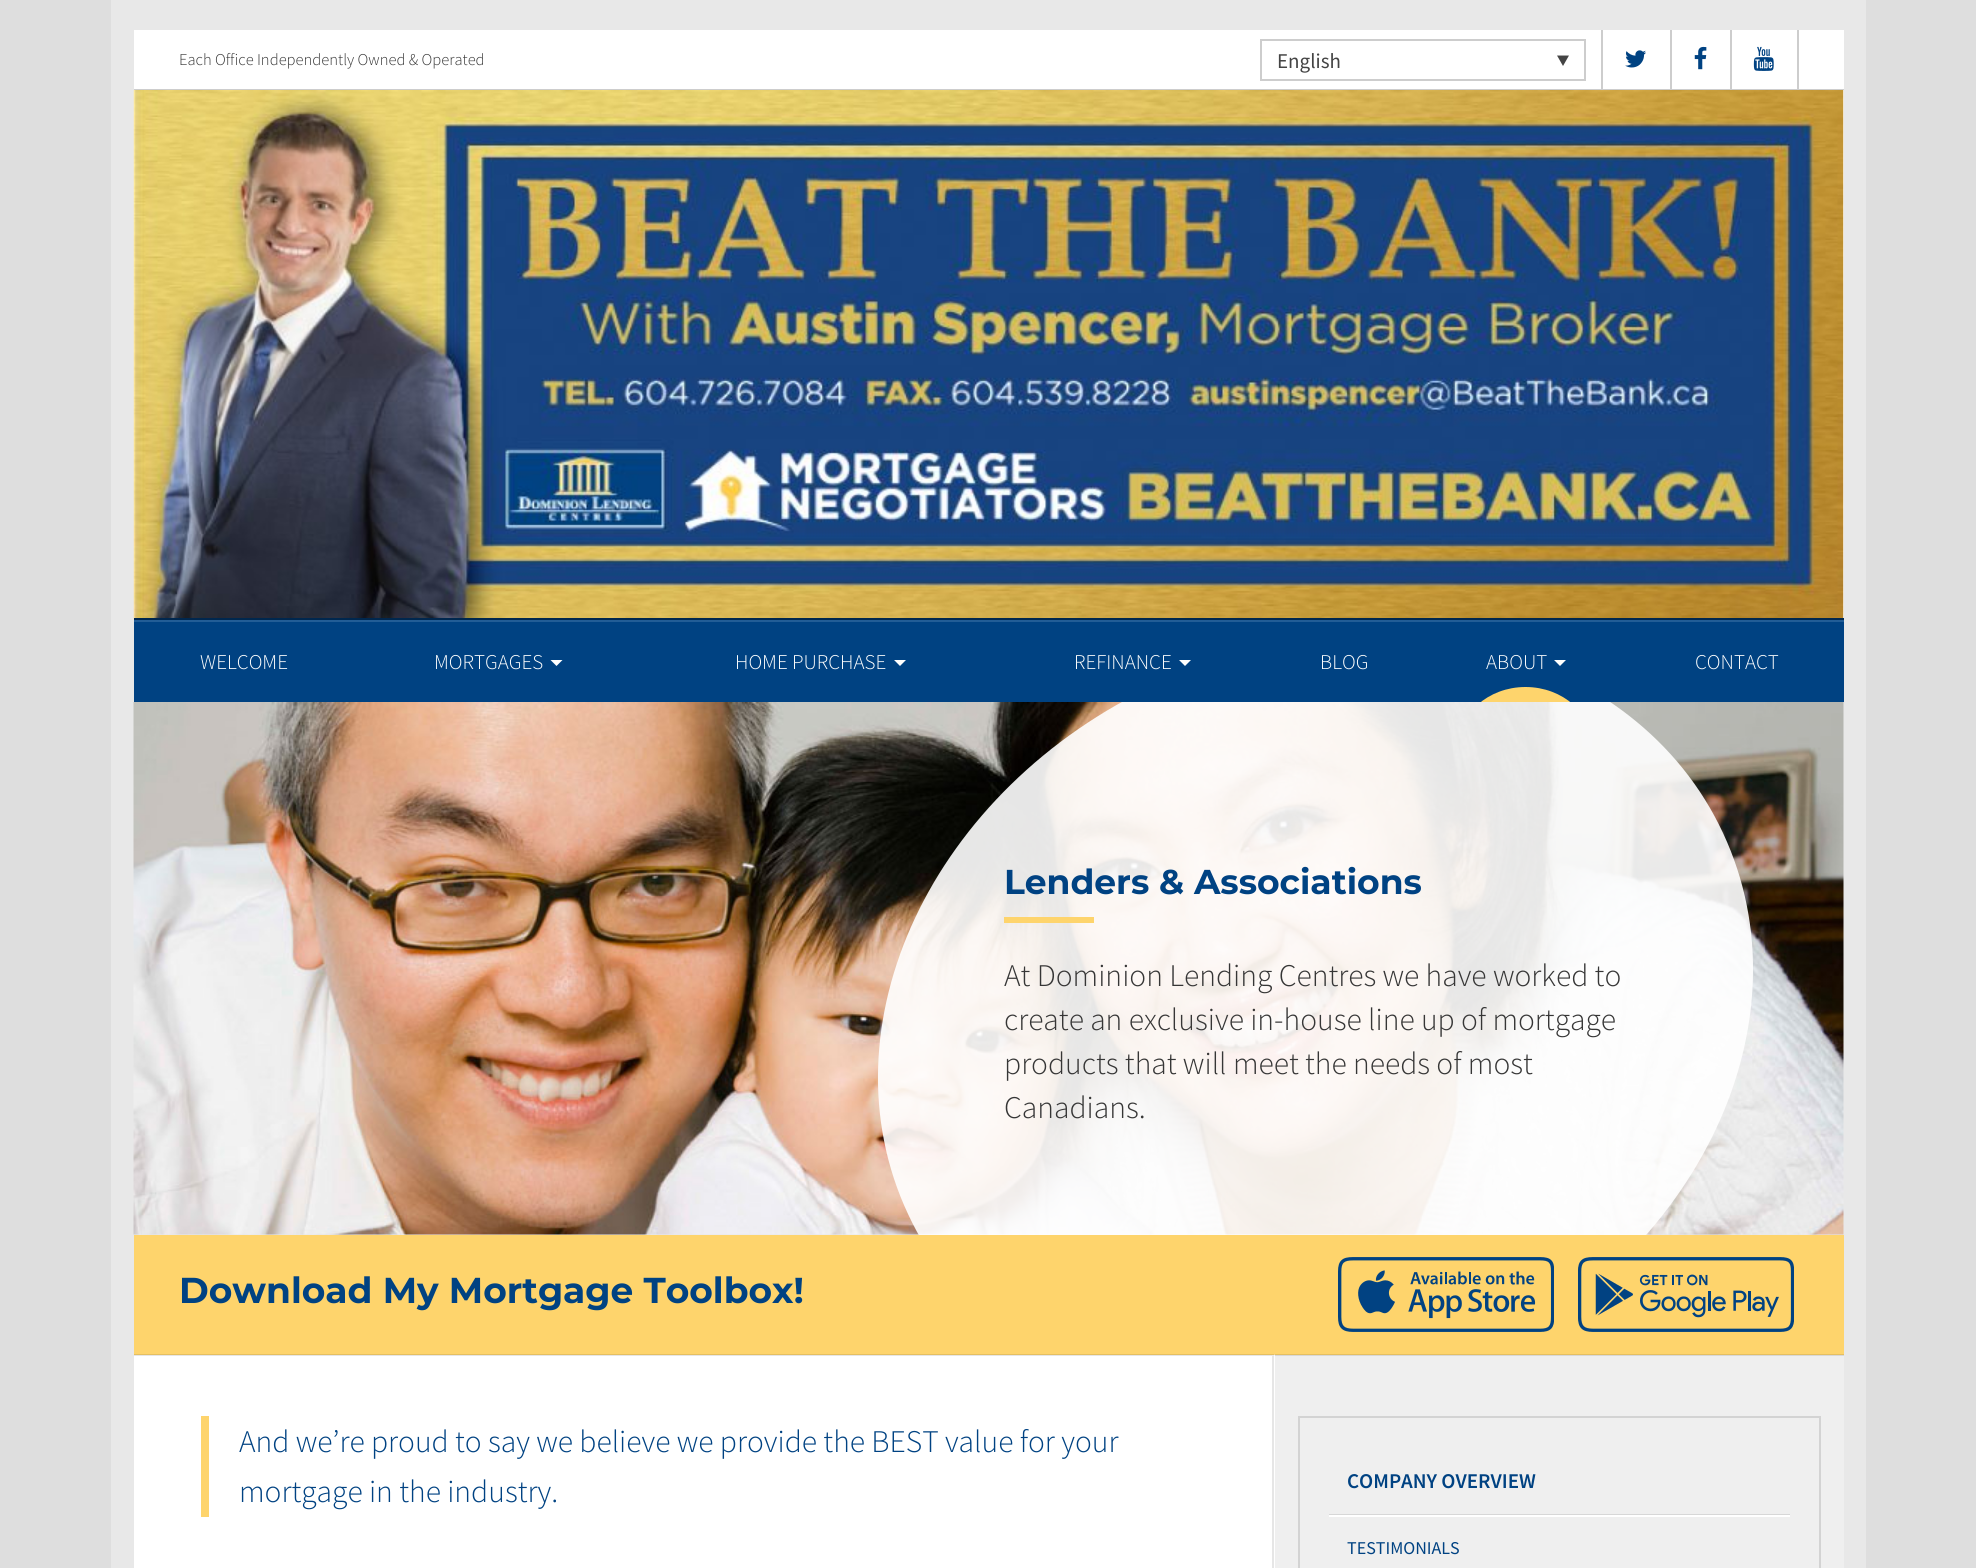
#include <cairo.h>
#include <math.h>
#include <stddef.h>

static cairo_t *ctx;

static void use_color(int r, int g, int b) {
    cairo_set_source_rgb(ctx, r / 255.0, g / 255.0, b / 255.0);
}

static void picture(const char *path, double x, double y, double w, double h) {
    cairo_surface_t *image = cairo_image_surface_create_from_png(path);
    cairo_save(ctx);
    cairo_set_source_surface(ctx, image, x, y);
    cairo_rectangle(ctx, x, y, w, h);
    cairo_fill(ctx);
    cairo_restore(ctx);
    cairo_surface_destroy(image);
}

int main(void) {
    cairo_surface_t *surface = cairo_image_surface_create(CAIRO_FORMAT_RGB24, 1976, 1568);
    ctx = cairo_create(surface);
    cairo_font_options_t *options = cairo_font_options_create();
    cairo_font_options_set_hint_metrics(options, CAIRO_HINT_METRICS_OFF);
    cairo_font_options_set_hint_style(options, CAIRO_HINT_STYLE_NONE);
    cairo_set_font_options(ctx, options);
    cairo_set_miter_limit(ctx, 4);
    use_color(222, 222, 222);
    cairo_paint(ctx);
    use_color(232, 232, 232);
    cairo_rectangle(ctx, 111, 0, 1755, 1568);
    cairo_fill(ctx);
    use_color(255, 255, 255);
    cairo_rectangle(ctx, 134, 30, 1710, 59);
    cairo_fill(ctx);
    use_color(205, 205, 205);
    cairo_rectangle(ctx, 134, 89, 1710, 1);
    cairo_fill(ctx);
    cairo_select_font_face(ctx, "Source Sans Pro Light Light", CAIRO_FONT_SLANT_NORMAL, CAIRO_FONT_WEIGHT_NORMAL);
    cairo_set_font_size(ctx, 16.5);
    use_color(54, 54, 54);
    cairo_move_to(ctx, 179, 65);
    cairo_show_text(ctx, "Each Office Independently Owned & Operated");
    cairo_rectangle(ctx, 1261, 40, 324, 40);
    use_color(205, 205, 205);
    cairo_stroke(ctx);
    cairo_select_font_face(ctx, "Source Sans Pro", CAIRO_FONT_SLANT_NORMAL, CAIRO_FONT_WEIGHT_NORMAL);
    cairo_set_font_size(ctx, 21);
    use_color(68, 68, 68);
    cairo_move_to(ctx, 1277, 68);
    cairo_show_text(ctx, "English");
    cairo_new_path(ctx);
    cairo_move_to(ctx, 1557, 55.5);
    cairo_line_to(ctx, 1569, 55.5);
    cairo_line_to(ctx, 1563, 66);
    cairo_close_path(ctx);
    cairo_fill(ctx);
    use_color(205, 205, 205);
    cairo_rectangle(ctx, 1601, 30, 2, 59);
    cairo_fill(ctx);
    picture("img1.png", 1625, 50, 21, 18);
    cairo_rectangle(ctx, 1670, 30, 2, 59);
    cairo_fill(ctx);
    picture("img2.png", 1694, 46, 13, 24);
    cairo_rectangle(ctx, 1797, 30, 2, 59);
    cairo_fill(ctx);
    cairo_rectangle(ctx, 1730, 30, 2, 59);
    cairo_fill(ctx);
    picture("img3.png", 1753, 46, 21, 25);
    use_color(255, 255, 255);
    cairo_rectangle(ctx, 1843, 90, 1, 528);
    cairo_fill(ctx);
    picture("img4.png", 133, 90, 1711, 530);
    use_color(0, 39, 78);
    cairo_new_path(ctx);
    cairo_move_to(ctx, 134, 618);
    cairo_line_to(ctx, 134, 620);
    cairo_line_to(ctx, 1844, 620);
    cairo_line_to(ctx, 1844, 701);
    cairo_line_to(ctx, 1844, 618);
    cairo_close_path(ctx);
    cairo_fill(ctx);
    use_color(0, 66, 130);
    cairo_rectangle(ctx, 134, 622, 1710, 80);
    cairo_fill(ctx);
    use_color(34, 93, 150);
    cairo_rectangle(ctx, 134, 620, 1710, 2);
    cairo_fill(ctx);
    cairo_select_font_face(ctx, "Source Sans Pro Light Light", CAIRO_FONT_SLANT_NORMAL, CAIRO_FONT_WEIGHT_NORMAL);
    use_color(255, 255, 255);
    cairo_move_to(ctx, 200, 669);
    cairo_show_text(ctx, "WELCOME");
    cairo_move_to(ctx, 434, 669);
    cairo_show_text(ctx, "MORTGAGES");
    cairo_new_path(ctx);
    cairo_move_to(ctx, 550.5, 660);
    cairo_line_to(ctx, 562.5, 660);
    cairo_line_to(ctx, 556.5, 666);
    cairo_close_path(ctx);
    cairo_fill(ctx);
    cairo_move_to(ctx, 735, 669);
    cairo_show_text(ctx, "HOME PURCHASE");
    cairo_new_path(ctx);
    cairo_move_to(ctx, 894, 660);
    cairo_line_to(ctx, 906, 660);
    cairo_line_to(ctx, 900, 666);
    cairo_close_path(ctx);
    cairo_fill(ctx);
    cairo_move_to(ctx, 1074, 669);
    cairo_show_text(ctx, "REFINANCE");
    cairo_new_path(ctx);
    cairo_move_to(ctx, 1179, 660);
    cairo_line_to(ctx, 1191, 660);
    cairo_line_to(ctx, 1185, 666);
    cairo_close_path(ctx);
    cairo_fill(ctx);
    cairo_move_to(ctx, 1320, 669);
    cairo_show_text(ctx, "BLOG");
    cairo_move_to(ctx, 1486, 669);
    cairo_show_text(ctx, "ABOUT");
    cairo_new_path(ctx);
    cairo_move_to(ctx, 1554, 660);
    cairo_line_to(ctx, 1566, 660);
    cairo_line_to(ctx, 1560, 666);
    cairo_close_path(ctx);
    cairo_fill(ctx);
    use_color(254, 212, 108);
    cairo_new_path(ctx);
    cairo_move_to(ctx, 1525.5, 687);
    cairo_curve_to(ctx, 1563, 687, 1593, 714, 1593, 747);
    cairo_curve_to(ctx, 1593, 780, 1563, 807, 1525.5, 807);
    cairo_curve_to(ctx, 1488, 807, 1458, 780, 1458, 747);
    cairo_curve_to(ctx, 1458, 714, 1488, 687, 1525.5, 687);
    cairo_close_path(ctx);
    cairo_fill(ctx);
    use_color(255, 255, 255);
    cairo_move_to(ctx, 1695, 669);
    cairo_show_text(ctx, "CONTACT");
    picture("img5.png", 133, 702, 1711, 533);
    cairo_save(ctx);
    cairo_rectangle(ctx, 134, 702, 1710, 533);
    cairo_clip(ctx);
    cairo_set_source_rgba(ctx, 1, 1, 1, 0.9);
    cairo_new_path(ctx);
    cairo_move_to(ctx, 1157, 684);
    cairo_curve_to(ctx, 1382, 579, 1636, 646, 1723, 833);
    cairo_curve_to(ctx, 1811, 1021, 1699, 1258, 1474, 1363);
    cairo_curve_to(ctx, 1249, 1468, 995, 1401, 908, 1214);
    cairo_curve_to(ctx, 820, 1026, 932, 789, 1157, 684);
    cairo_close_path(ctx);
    cairo_fill(ctx);
    cairo_restore(ctx);
    cairo_select_font_face(ctx, "Montserrat", CAIRO_FONT_SLANT_NORMAL, CAIRO_FONT_WEIGHT_BOLD);
    cairo_set_font_size(ctx, 34.5);
    use_color(0, 66, 130);
    cairo_move_to(ctx, 1004, 894);
    cairo_show_text(ctx, "Lenders & Associations");
    use_color(254, 212, 108);
    cairo_rectangle(ctx, 1004, 917, 90, 6);
    cairo_fill(ctx);
    cairo_select_font_face(ctx, "Source Sans Pro Light Light", CAIRO_FONT_SLANT_NORMAL, CAIRO_FONT_WEIGHT_NORMAL);
    cairo_set_font_size(ctx, 31.5);
    use_color(54, 54, 54);
    cairo_move_to(ctx, 1004, 986);
    cairo_show_text(ctx, "At Dominion Lending Centres we have worked to");
    cairo_move_to(ctx, 1004, 1030);
    cairo_show_text(ctx, "create an exclusive in-house line up of mortgage");
    cairo_move_to(ctx, 1004, 1074);
    cairo_show_text(ctx, "products that will meet the needs of most");
    cairo_move_to(ctx, 1004, 1118);
    cairo_show_text(ctx, "Canadians.");
    use_color(254, 212, 108);
    cairo_rectangle(ctx, 134, 1235, 1710, 120);
    cairo_fill(ctx);
    cairo_select_font_face(ctx, "Montserrat", CAIRO_FONT_SLANT_NORMAL, CAIRO_FONT_WEIGHT_BOLD);
    cairo_set_font_size(ctx, 36);
    use_color(0, 66, 130);
    cairo_move_to(ctx, 179, 1303);
    cairo_show_text(ctx, "Download My Mortgage Toolbox!");
    picture("img6.png", 1338, 1257, 216, 75);
    picture("img7.png", 1578, 1257, 216, 75);
    use_color(255, 255, 255);
    cairo_rectangle(ctx, 134, 1355, 1140, 213);
    cairo_fill(ctx);
    cairo_set_source_rgba(ctx, 0, 0, 0, 0.1);
    cairo_new_path(ctx);
    cairo_move_to(ctx, 134, 1354);
    cairo_line_to(ctx, 1274, 1354);
    cairo_line_to(ctx, 1272, 1356);
    cairo_line_to(ctx, 134, 1356);
    cairo_close_path(ctx);
    cairo_fill(ctx);
    cairo_new_path(ctx);
    cairo_move_to(ctx, 1274, 1354);
    cairo_line_to(ctx, 1274, 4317);
    cairo_line_to(ctx, 1272, 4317);
    cairo_line_to(ctx, 1272, 1356);
    cairo_close_path(ctx);
    cairo_fill(ctx);
    use_color(254, 212, 108);
    cairo_rectangle(ctx, 201, 1416, 8, 101);
    cairo_fill(ctx);
    cairo_select_font_face(ctx, "Source Sans Pro Light Light", CAIRO_FONT_SLANT_NORMAL, CAIRO_FONT_WEIGHT_NORMAL);
    cairo_set_font_size(ctx, 31.5);
    use_color(0, 66, 130);
    cairo_move_to(ctx, 239, 1452);
    cairo_show_text(ctx, "And we’re proud to say we believe we provide the BEST value for your");
    cairo_move_to(ctx, 239, 1502);
    cairo_show_text(ctx, "mortgage in the industry.");
    use_color(239, 239, 239);
    cairo_rectangle(ctx, 1274, 1355, 570, 213);
    cairo_fill(ctx);
    cairo_set_source_rgba(ctx, 0, 0, 0, 0.1);
    cairo_new_path(ctx);
    cairo_move_to(ctx, 1274, 1354);
    cairo_line_to(ctx, 1844, 1354);
    cairo_line_to(ctx, 1844, 1356);
    cairo_line_to(ctx, 1275, 1356);
    cairo_close_path(ctx);
    cairo_fill(ctx);
    use_color(255, 255, 255);
    cairo_new_path(ctx);
    cairo_move_to(ctx, 1274, 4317);
    cairo_line_to(ctx, 1274, 1354);
    cairo_line_to(ctx, 1275, 1356);
    cairo_line_to(ctx, 1275, 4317);
    cairo_close_path(ctx);
    cairo_fill(ctx);
    cairo_rectangle(ctx, 1299, 1417, 521, 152);
    use_color(211, 211, 211);
    cairo_stroke(ctx);
    use_color(215, 215, 215);
    cairo_rectangle(ctx, 1329, 1514, 461, 1);
    cairo_fill(ctx);
    cairo_select_font_face(ctx, "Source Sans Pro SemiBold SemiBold", CAIRO_FONT_SLANT_NORMAL, CAIRO_FONT_WEIGHT_NORMAL);
    cairo_set_font_size(ctx, 21);
    use_color(0, 66, 130);
    cairo_move_to(ctx, 1347, 1488);
    cairo_show_text(ctx, "COMPANY OVERVIEW");
    use_color(255, 255, 255);
    cairo_rectangle(ctx, 1329, 1515, 461, 2);
    cairo_fill(ctx);
    cairo_select_font_face(ctx, "Source Sans Pro", CAIRO_FONT_SLANT_NORMAL, CAIRO_FONT_WEIGHT_NORMAL);
    cairo_set_font_size(ctx, 18);
    use_color(0, 66, 130);
    cairo_move_to(ctx, 1347, 1554);
    cairo_show_text(ctx, "TESTIMONIALS");
    cairo_surface_write_to_png(surface, "result.png");
    cairo_font_options_destroy(options);
    cairo_destroy(ctx);
    cairo_surface_destroy(surface);
    return 0;
}
